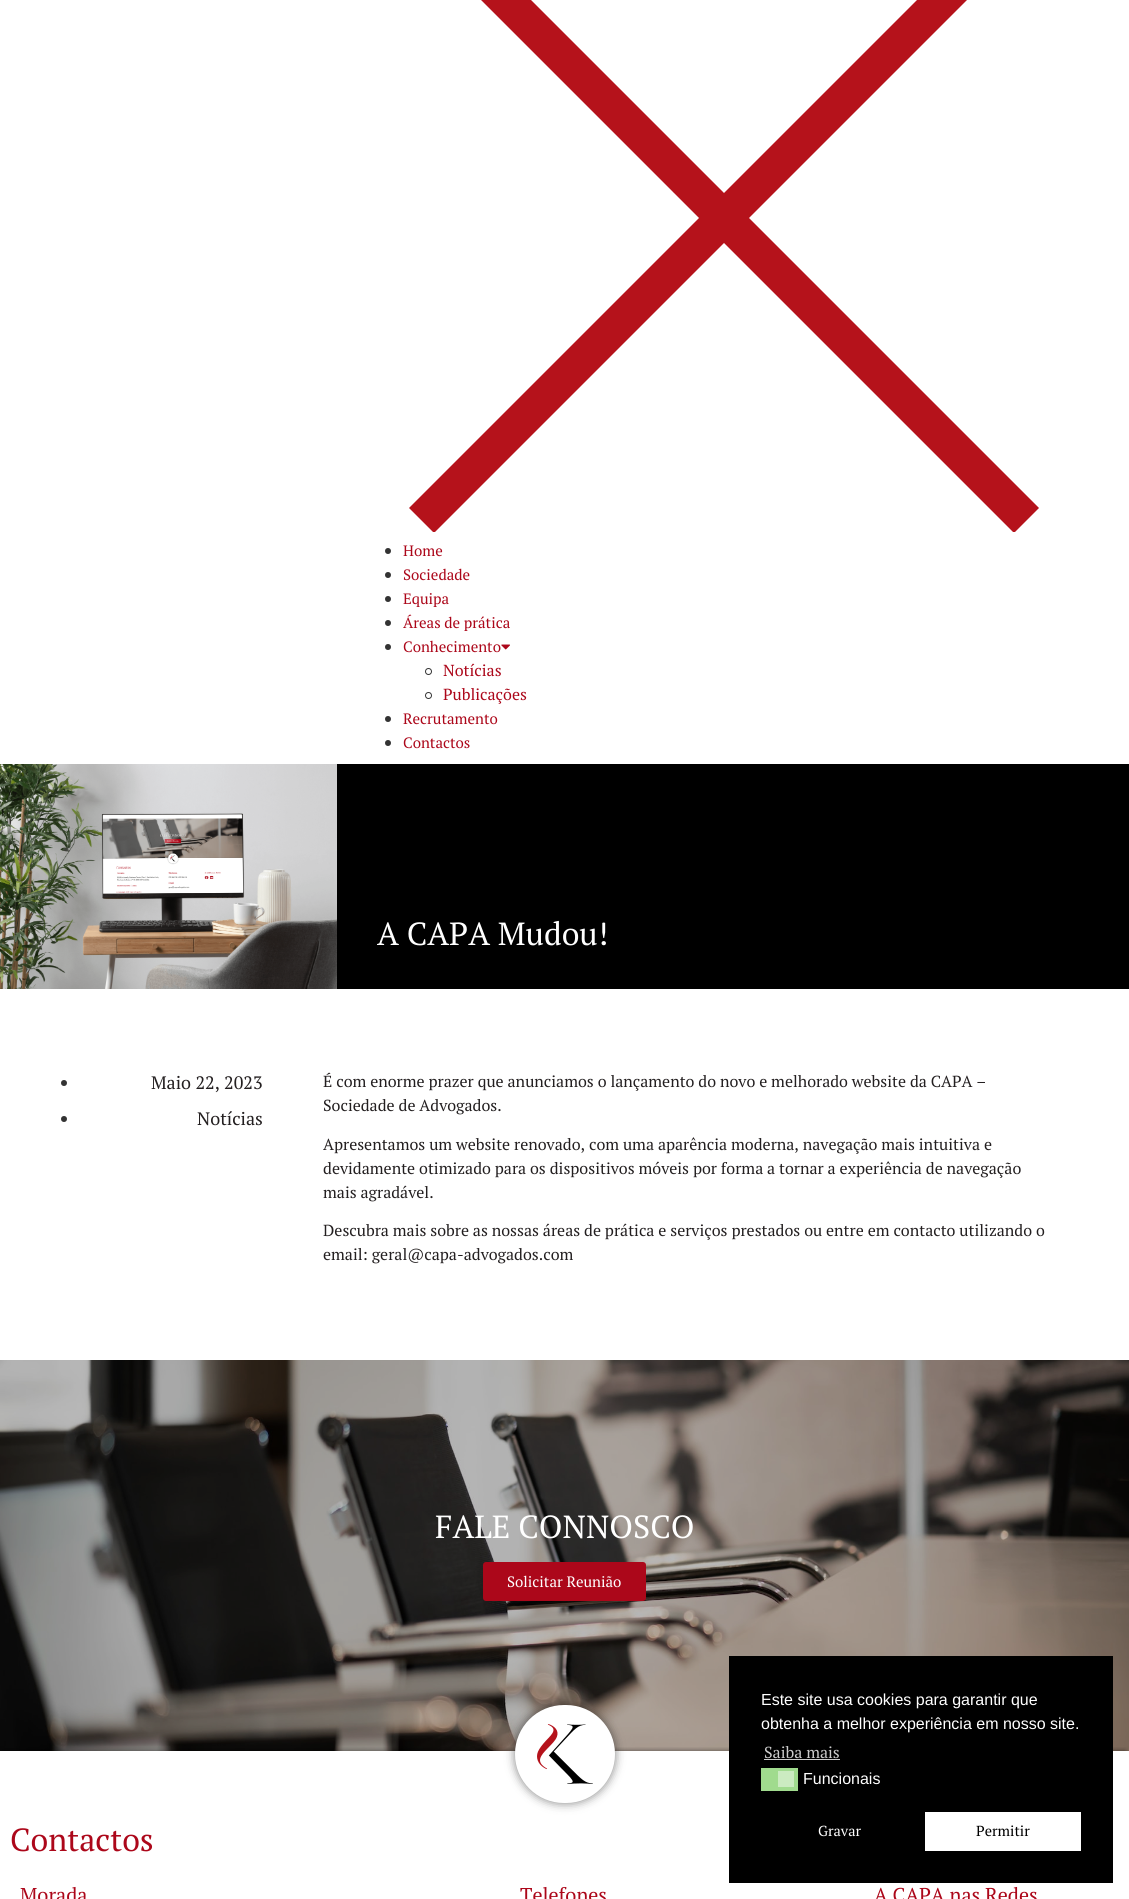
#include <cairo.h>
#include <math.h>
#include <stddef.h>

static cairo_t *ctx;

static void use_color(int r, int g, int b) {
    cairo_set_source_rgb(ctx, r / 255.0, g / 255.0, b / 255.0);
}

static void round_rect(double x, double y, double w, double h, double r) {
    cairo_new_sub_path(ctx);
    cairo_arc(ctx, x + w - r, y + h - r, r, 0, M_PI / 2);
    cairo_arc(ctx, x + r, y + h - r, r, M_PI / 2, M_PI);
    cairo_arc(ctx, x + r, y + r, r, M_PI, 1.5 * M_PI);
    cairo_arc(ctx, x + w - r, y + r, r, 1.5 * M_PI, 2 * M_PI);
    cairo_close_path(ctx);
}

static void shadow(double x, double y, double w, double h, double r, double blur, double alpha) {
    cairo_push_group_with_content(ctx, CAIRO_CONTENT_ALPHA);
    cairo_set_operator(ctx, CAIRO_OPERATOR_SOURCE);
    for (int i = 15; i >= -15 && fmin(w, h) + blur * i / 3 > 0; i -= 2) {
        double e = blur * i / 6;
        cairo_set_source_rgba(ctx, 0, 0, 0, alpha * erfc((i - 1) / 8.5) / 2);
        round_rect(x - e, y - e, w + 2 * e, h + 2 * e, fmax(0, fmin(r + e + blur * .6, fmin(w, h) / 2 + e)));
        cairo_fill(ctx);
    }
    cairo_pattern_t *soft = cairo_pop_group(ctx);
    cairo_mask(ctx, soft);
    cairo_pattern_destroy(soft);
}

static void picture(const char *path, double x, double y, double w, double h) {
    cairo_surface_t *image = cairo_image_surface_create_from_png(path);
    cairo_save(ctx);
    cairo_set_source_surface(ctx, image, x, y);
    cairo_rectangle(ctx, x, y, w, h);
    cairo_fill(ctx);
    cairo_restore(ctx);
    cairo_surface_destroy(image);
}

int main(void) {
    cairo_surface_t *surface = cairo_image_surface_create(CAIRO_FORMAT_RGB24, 1129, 1899);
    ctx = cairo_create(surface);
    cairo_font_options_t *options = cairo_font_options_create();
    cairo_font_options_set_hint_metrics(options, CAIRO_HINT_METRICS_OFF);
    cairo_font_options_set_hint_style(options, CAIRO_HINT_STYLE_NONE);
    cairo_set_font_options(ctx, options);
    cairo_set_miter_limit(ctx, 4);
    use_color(255, 255, 255);
    cairo_paint(ctx);
    cairo_save(ctx);
    cairo_rectangle(ctx, 363, 0, 756, 532);
    cairo_clip(ctx);
    use_color(181, 18, 27);
    cairo_new_path(ctx);
    cairo_move_to(ctx, 1039, -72);
    cairo_line_to(ctx, 1014, -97);
    cairo_line_to(ctx, 724, 193);
    cairo_line_to(ctx, 434, -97);
    cairo_line_to(ctx, 409, -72);
    cairo_line_to(ctx, 699, 218);
    cairo_line_to(ctx, 409, 508);
    cairo_line_to(ctx, 434, 533);
    cairo_line_to(ctx, 724, 243);
    cairo_line_to(ctx, 1014, 533);
    cairo_line_to(ctx, 1039, 508);
    cairo_line_to(ctx, 749, 218);
    cairo_close_path(ctx);
    cairo_fill(ctx);
    cairo_restore(ctx);
    use_color(51, 51, 51);
    cairo_arc(ctx, 388, 551, 3, 0, 2 * M_PI);
    cairo_fill(ctx);
    cairo_select_font_face(ctx, "PT Serif", CAIRO_FONT_SLANT_NORMAL, CAIRO_FONT_WEIGHT_NORMAL);
    cairo_set_font_size(ctx, 15);
    use_color(172, 7, 26);
    cairo_move_to(ctx, 403, 556);
    cairo_show_text(ctx, "Home");
    use_color(51, 51, 51);
    cairo_new_path(ctx);
    cairo_arc(ctx, 388, 575, 3, 0, 2 * M_PI);
    cairo_fill(ctx);
    use_color(172, 7, 26);
    cairo_move_to(ctx, 403, 580);
    cairo_show_text(ctx, "Sociedade");
    use_color(51, 51, 51);
    cairo_new_path(ctx);
    cairo_arc(ctx, 388, 599, 3, 0, 2 * M_PI);
    cairo_fill(ctx);
    use_color(172, 7, 26);
    cairo_move_to(ctx, 403, 604);
    cairo_show_text(ctx, "Equipa");
    use_color(51, 51, 51);
    cairo_new_path(ctx);
    cairo_arc(ctx, 388, 623, 3, 0, 2 * M_PI);
    cairo_fill(ctx);
    use_color(172, 7, 26);
    cairo_move_to(ctx, 403, 628);
    cairo_show_text(ctx, "Áreas de prática");
    use_color(51, 51, 51);
    cairo_new_path(ctx);
    cairo_arc(ctx, 388, 647, 3, 0, 2 * M_PI);
    cairo_fill(ctx);
    use_color(172, 7, 26);
    cairo_move_to(ctx, 403, 652);
    cairo_show_text(ctx, "Conhecimento");
    picture("img1.png", 501, 644, 9, 6);
    cairo_arc(ctx, 428.5, 671.5, 3, 0, 2 * M_PI);
    use_color(51, 51, 51);
    cairo_set_line_width(ctx, 1);
    cairo_stroke(ctx);
    cairo_set_font_size(ctx, 16);
    use_color(172, 7, 26);
    cairo_move_to(ctx, 443, 676);
    cairo_show_text(ctx, "Notícias");
    cairo_new_path(ctx);
    cairo_arc(ctx, 428.5, 695.5, 3, 0, 2 * M_PI);
    use_color(51, 51, 51);
    cairo_stroke(ctx);
    use_color(172, 7, 26);
    cairo_move_to(ctx, 443, 700);
    cairo_show_text(ctx, "Publicações");
    use_color(51, 51, 51);
    cairo_new_path(ctx);
    cairo_arc(ctx, 388, 719, 3, 0, 2 * M_PI);
    cairo_fill(ctx);
    cairo_set_font_size(ctx, 15);
    use_color(172, 7, 26);
    cairo_move_to(ctx, 403, 724);
    cairo_show_text(ctx, "Recrutamento");
    use_color(51, 51, 51);
    cairo_new_path(ctx);
    cairo_arc(ctx, 388, 743, 3, 0, 2 * M_PI);
    cairo_fill(ctx);
    use_color(172, 7, 26);
    cairo_move_to(ctx, 403, 748);
    cairo_show_text(ctx, "Contactos");
    use_color(0, 0, 0);
    cairo_rectangle(ctx, 337, 764, 792, 225);
    cairo_fill(ctx);
    picture("img2.png", 0, 764, 337, 225);
    cairo_set_font_size(ctx, 32);
    use_color(255, 255, 255);
    cairo_move_to(ctx, 377, 945);
    cairo_show_text(ctx, "A CAPA Mudou!");
    use_color(51, 51, 51);
    cairo_new_path(ctx);
    cairo_arc(ctx, 64, 1083, 3, 0, 2 * M_PI);
    cairo_fill(ctx);
    cairo_set_font_size(ctx, 18);
    use_color(35, 31, 32);
    cairo_move_to(ctx, 151, 1089);
    cairo_show_text(ctx, "Maio 22, 2023");
    use_color(51, 51, 51);
    cairo_new_path(ctx);
    cairo_arc(ctx, 64, 1119, 3, 0, 2 * M_PI);
    cairo_fill(ctx);
    use_color(35, 31, 32);
    cairo_move_to(ctx, 197, 1125);
    cairo_show_text(ctx, "Notícias");
    cairo_set_font_size(ctx, 16);
    cairo_move_to(ctx, 323, 1087);
    cairo_show_text(ctx, "É com enorme prazer que anunciamos o lançamento do novo e melhorado website da CAPA –");
    cairo_move_to(ctx, 323, 1111);
    cairo_show_text(ctx, "Sociedade de Advogados.");
    cairo_move_to(ctx, 323, 1150);
    cairo_show_text(ctx, "Apresentamos um website renovado, com uma aparência moderna, navegação mais intuitiva e");
    cairo_move_to(ctx, 323, 1174);
    cairo_show_text(ctx, "devidamente otimizado para os dispositivos móveis por forma a tornar a experiência de navegação");
    cairo_move_to(ctx, 323, 1198);
    cairo_show_text(ctx, "mais agradável.");
    cairo_move_to(ctx, 323, 1236);
    cairo_show_text(ctx, "Descubra mais sobre as nossas áreas de prática e serviços prestados ou entre em contacto utilizando o");
    cairo_move_to(ctx, 323, 1260);
    cairo_show_text(ctx, "email: geral@capa-advogados.com");
    picture("img3.png", 0, 1360, 1129, 391);
    cairo_set_font_size(ctx, 32);
    use_color(255, 255, 255);
    cairo_move_to(ctx, 435, 1538);
    cairo_show_text(ctx, "FALE CONNOSCO");
    use_color(172, 7, 26);
    round_rect(483, 1562, 163, 39, 3);
    cairo_fill(ctx);
    cairo_set_font_size(ctx, 15);
    use_color(255, 255, 255);
    cairo_move_to(ctx, 507, 1587);
    cairo_show_text(ctx, "Solicitar Reunião");
    cairo_save(ctx);
    cairo_rectangle(ctx, 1, 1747, 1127, 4);
    cairo_clip(ctx);
    use_color(0, 0, 0);
    shadow(4, 1751, 1121, 54, 0, 2.5, 0.5);
    cairo_restore(ctx);
    use_color(0, 0, 0);
    shadow(515, 1705, 100, 98, 49, 5, 0.5);
    use_color(255, 255, 255);
    round_rect(515, 1705, 100, 98, 49);
    cairo_fill(ctx);
    picture("img4.png", 537, 1724, 56, 60);
    cairo_set_font_size(ctx, 32);
    use_color(172, 7, 26);
    cairo_move_to(ctx, 10, 1851);
    cairo_show_text(ctx, "Contactos");
    cairo_set_font_size(ctx, 20);
    cairo_move_to(ctx, 20, 1902);
    cairo_show_text(ctx, "Morada");
    cairo_move_to(ctx, 520, 1902);
    cairo_show_text(ctx, "Telefones");
    cairo_move_to(ctx, 874, 1902);
    cairo_show_text(ctx, "A CAPA nas Redes");
    use_color(0, 0, 0);
    cairo_rectangle(ctx, 729, 1656, 384, 227);
    cairo_fill(ctx);
    cairo_select_font_face(ctx, "Liberation Sans", CAIRO_FONT_SLANT_NORMAL, CAIRO_FONT_WEIGHT_NORMAL);
    cairo_set_font_size(ctx, 16);
    use_color(255, 255, 255);
    cairo_move_to(ctx, 761, 1705);
    cairo_show_text(ctx, "Este site usa cookies para garantir que");
    cairo_move_to(ctx, 761, 1729);
    cairo_show_text(ctx, "obtenha a melhor experiência em nosso site.");
    cairo_select_font_face(ctx, "PT Serif", CAIRO_FONT_SLANT_NORMAL, CAIRO_FONT_WEIGHT_NORMAL);
    use_color(204, 204, 204);
    cairo_move_to(ctx, 764, 1758);
    cairo_show_text(ctx, "Saiba mais");
    cairo_rectangle(ctx, 764, 1759, 76, 1);
    cairo_fill(ctx);
    use_color(160, 219, 142);
    cairo_rectangle(ctx, 761, 1768, 37, 23);
    cairo_fill(ctx);
    use_color(203, 235, 193);
    cairo_rectangle(ctx, 778, 1771, 16, 16);
    cairo_fill(ctx);
    cairo_select_font_face(ctx, "Liberation Sans", CAIRO_FONT_SLANT_NORMAL, CAIRO_FONT_WEIGHT_NORMAL);
    use_color(255, 255, 255);
    cairo_move_to(ctx, 803, 1784);
    cairo_show_text(ctx, "Funcionais");
    cairo_select_font_face(ctx, "PT Serif", CAIRO_FONT_SLANT_NORMAL, CAIRO_FONT_WEIGHT_NORMAL);
    cairo_set_font_size(ctx, 14.5);
    cairo_move_to(ctx, 818, 1836);
    cairo_show_text(ctx, "Gravar");
    cairo_rectangle(ctx, 925, 1812, 156, 39);
    cairo_fill(ctx);
    use_color(0, 0, 0);
    cairo_move_to(ctx, 976, 1836);
    cairo_show_text(ctx, "Permitir");
    cairo_surface_write_to_png(surface, "result.png");
    cairo_font_options_destroy(options);
    cairo_destroy(ctx);
    cairo_surface_destroy(surface);
    return 0;
}
